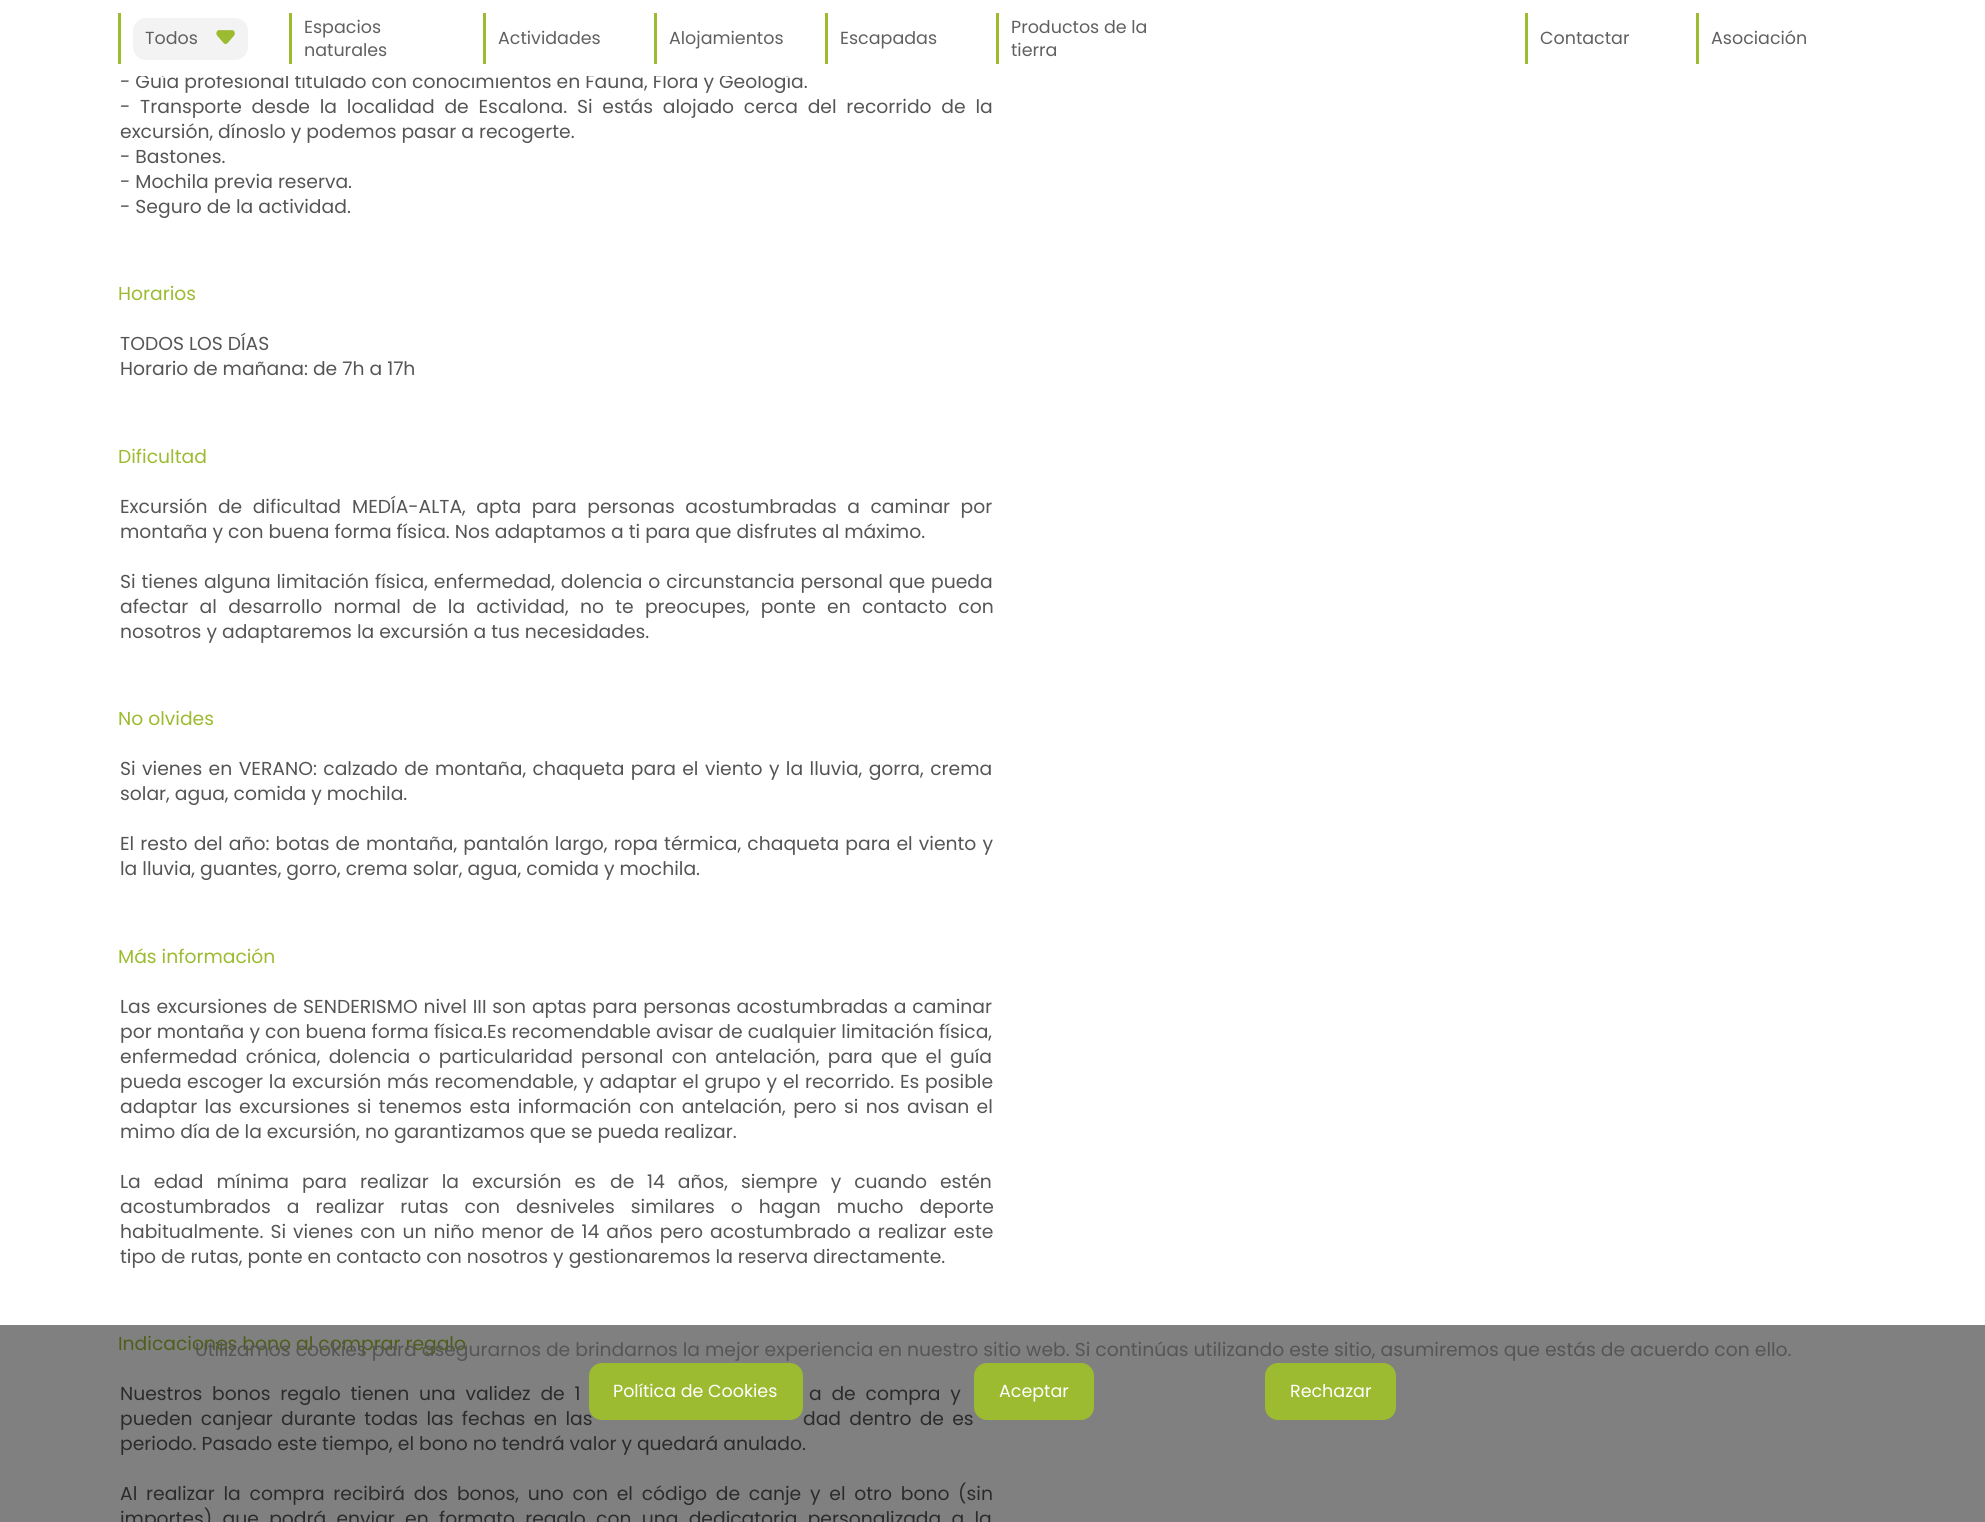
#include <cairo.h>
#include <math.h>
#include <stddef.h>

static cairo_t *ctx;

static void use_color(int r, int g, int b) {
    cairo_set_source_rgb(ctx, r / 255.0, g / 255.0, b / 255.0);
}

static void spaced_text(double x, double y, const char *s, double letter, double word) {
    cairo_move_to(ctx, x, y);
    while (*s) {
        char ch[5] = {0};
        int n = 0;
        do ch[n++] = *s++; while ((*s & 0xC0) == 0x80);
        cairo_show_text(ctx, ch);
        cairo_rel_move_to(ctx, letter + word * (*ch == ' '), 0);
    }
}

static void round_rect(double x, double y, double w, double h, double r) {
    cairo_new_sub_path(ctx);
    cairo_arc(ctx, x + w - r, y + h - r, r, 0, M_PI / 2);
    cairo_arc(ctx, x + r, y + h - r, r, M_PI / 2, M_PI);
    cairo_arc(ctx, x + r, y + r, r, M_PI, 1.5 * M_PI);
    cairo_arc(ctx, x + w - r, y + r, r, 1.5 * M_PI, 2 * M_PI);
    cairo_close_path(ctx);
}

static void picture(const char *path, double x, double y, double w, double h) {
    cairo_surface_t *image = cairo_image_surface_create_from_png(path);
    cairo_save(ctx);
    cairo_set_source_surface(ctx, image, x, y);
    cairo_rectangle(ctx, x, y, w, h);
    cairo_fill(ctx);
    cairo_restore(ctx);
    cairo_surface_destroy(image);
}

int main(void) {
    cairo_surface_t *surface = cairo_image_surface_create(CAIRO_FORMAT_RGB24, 1985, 1522);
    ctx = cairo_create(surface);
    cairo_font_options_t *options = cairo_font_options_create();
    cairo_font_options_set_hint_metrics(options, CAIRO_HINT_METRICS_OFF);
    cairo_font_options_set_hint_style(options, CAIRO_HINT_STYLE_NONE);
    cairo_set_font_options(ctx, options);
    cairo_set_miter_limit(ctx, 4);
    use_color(255, 255, 255);
    cairo_paint(ctx);
    use_color(128, 128, 128);
    cairo_rectangle(ctx, 0, 1325, 1985, 197);
    cairo_fill(ctx);
    cairo_select_font_face(ctx, "Poppins", CAIRO_FONT_SLANT_NORMAL, CAIRO_FONT_WEIGHT_NORMAL);
    cairo_set_font_size(ctx, 18.75);
    use_color(85, 85, 85);
    cairo_move_to(ctx, 120, 88);
    cairo_show_text(ctx, "- Guía profesional titulado con conocimientos en Fauna, Flora y Geología.");
    use_color(255, 255, 255);
    cairo_rectangle(ctx, 139, 73, 652, 3);
    cairo_fill(ctx);
    use_color(156, 187, 49);
    cairo_rectangle(ctx, 118, 13, 3, 51);
    cairo_fill(ctx);
    use_color(243, 243, 243);
    round_rect(133, 18, 115, 42, 13);
    cairo_fill(ctx);
    cairo_set_font_size(ctx, 17.5);
    use_color(96, 96, 96);
    cairo_move_to(ctx, 145, 44);
    cairo_show_text(ctx, "Todos");
    picture("img1.png", 216, 30, 19, 14);
    use_color(156, 187, 49);
    cairo_rectangle(ctx, 289, 13, 3, 51);
    cairo_fill(ctx);
    use_color(96, 96, 96);
    cairo_move_to(ctx, 304, 33);
    cairo_show_text(ctx, "Espacios");
    cairo_move_to(ctx, 304, 56);
    cairo_show_text(ctx, "naturales");
    use_color(156, 187, 49);
    cairo_rectangle(ctx, 483, 13, 3, 51);
    cairo_fill(ctx);
    use_color(96, 96, 96);
    cairo_move_to(ctx, 498, 44);
    cairo_show_text(ctx, "Actividades");
    use_color(156, 187, 49);
    cairo_rectangle(ctx, 654, 13, 3, 51);
    cairo_fill(ctx);
    use_color(96, 96, 96);
    cairo_move_to(ctx, 669, 44);
    cairo_show_text(ctx, "Alojamientos");
    use_color(156, 187, 49);
    cairo_rectangle(ctx, 825, 13, 3, 51);
    cairo_fill(ctx);
    use_color(96, 96, 96);
    cairo_move_to(ctx, 840, 44);
    cairo_show_text(ctx, "Escapadas");
    use_color(156, 187, 49);
    cairo_rectangle(ctx, 996, 13, 3, 51);
    cairo_fill(ctx);
    use_color(96, 96, 96);
    cairo_move_to(ctx, 1011, 33);
    cairo_show_text(ctx, "Productos de la");
    cairo_move_to(ctx, 1011, 56);
    cairo_show_text(ctx, "tierra");
    use_color(156, 187, 49);
    cairo_rectangle(ctx, 1525, 13, 3, 51);
    cairo_fill(ctx);
    use_color(96, 96, 96);
    cairo_move_to(ctx, 1540, 44);
    cairo_show_text(ctx, "Contactar");
    use_color(156, 187, 49);
    cairo_rectangle(ctx, 1696, 13, 3, 51);
    cairo_fill(ctx);
    use_color(96, 96, 96);
    cairo_move_to(ctx, 1711, 44);
    cairo_show_text(ctx, "Asociación");
    cairo_set_font_size(ctx, 18.75);
    use_color(85, 85, 85);
    spaced_text(120, 113, "- Transporte desde la localidad de Escalona. Si estás alojado cerca del recorrido de la", 0, 4.75);
    cairo_move_to(ctx, 120, 138);
    cairo_show_text(ctx, "excursión, dínoslo y podemos pasar a recogerte.");
    cairo_move_to(ctx, 120, 163);
    cairo_show_text(ctx, "- Bastones.");
    cairo_move_to(ctx, 120, 188);
    cairo_show_text(ctx, "- Mochila previa reserva.");
    cairo_move_to(ctx, 120, 213);
    cairo_show_text(ctx, "- Seguro de la actividad.");
    use_color(156, 187, 49);
    cairo_move_to(ctx, 118, 300);
    cairo_show_text(ctx, "Horarios");
    use_color(85, 85, 85);
    cairo_move_to(ctx, 120, 350);
    cairo_show_text(ctx, "TODOS LOS DÍAS");
    cairo_move_to(ctx, 120, 375);
    cairo_show_text(ctx, "Horario de mañana: de 7h a 17h");
    use_color(156, 187, 49);
    cairo_move_to(ctx, 118, 463);
    cairo_show_text(ctx, "Dificultad");
    use_color(85, 85, 85);
    spaced_text(120, 513, "Excursión de dificultad", 0, 5.5);
    spaced_text(352, 513, "MEDÍA-ALTA, apta para personas acostumbradas a caminar por", 0, 5.5);
    cairo_move_to(ctx, 120, 538);
    cairo_show_text(ctx, "montaña y con buena forma física. Nos adaptamos a ti para que disfrutes al máximo.");
    spaced_text(120, 588, "Si tienes alguna limitación física, enfermedad, dolencia o circunstancia personal que pueda", 0, 0.9);
    spaced_text(120, 613, "afectar al desarrollo normal de la actividad, no te preocupes, ponte en contacto con", 0, 6.25);
    cairo_move_to(ctx, 120, 638);
    cairo_show_text(ctx, "nosotros y adaptaremos la excursión a tus necesidades.");
    use_color(156, 187, 49);
    cairo_move_to(ctx, 118, 725);
    cairo_show_text(ctx, "No olvides");
    use_color(85, 85, 85);
    spaced_text(120, 775, "Si vienes en VERANO: calzado de montaña, chaqueta para el viento y la lluvia, gorra, crema", 0, 1.4);
    cairo_move_to(ctx, 120, 800);
    cairo_show_text(ctx, "solar, agua, comida y mochila.");
    spaced_text(120, 850, "El resto del año: botas de montaña, pantalón largo, ropa térmica, chaqueta para el viento y", 0, 1.1);
    cairo_move_to(ctx, 120, 875);
    cairo_show_text(ctx, "la lluvia, guantes, gorro, crema solar, agua, comida y mochila.");
    use_color(156, 187, 49);
    cairo_move_to(ctx, 118, 963);
    cairo_show_text(ctx, "Más información");
    use_color(85, 85, 85);
    spaced_text(120, 1013, "Las excursiones de SENDERISMO nivel III son aptas para personas acostumbradas a caminar", 0, 0.8);
    spaced_text(120, 1038, "por montaña y con buena forma física.Es recomendable avisar de cualquier limitación física,", 0, 0.1);
    spaced_text(120, 1063, "enfermedad crónica, dolencia o particularidad personal con antelación, para que el guía", 0, 3.25);
    cairo_move_to(ctx, 120, 1088);
    cairo_show_text(ctx, "pueda");
    spaced_text(187, 1088, "escoger la excursión más recomendable, y adaptar el grupo y el recorrido. Es posible", 0, 0.75);
    spaced_text(120, 1113, "adaptar las excursiones", 0, 2.4);
    spaced_text(357, 1113, "si tenemos esta información con antelación, pero si nos avisan el", 0, 2.4);
    cairo_move_to(ctx, 120, 1138);
    cairo_show_text(ctx, "mimo día de la excursión, no garantizamos que se pueda realizar.");
    spaced_text(120, 1188, "La edad mínima para realizar la excursión es", 0, 8);
    cairo_move_to(ctx, 610, 1188);
    cairo_show_text(ctx, "de");
    spaced_text(647, 1188, "14 años, siempre y cuando estén", 0, 8);
    spaced_text(120, 1213, "acostumbrados a realizar rutas con desniveles similares o hagan mucho deporte", 0, 11);
    spaced_text(120, 1238, "habitualmente. Si vienes con un niño menor de 14 años pero acostumbrado a realizar este", 0, 2);
    cairo_move_to(ctx, 120, 1263);
    cairo_show_text(ctx, "tipo de rutas, ponte en contacto con nosotros y gestionaremos la reserva directamente.");
    use_color(78, 94, 25);
    cairo_move_to(ctx, 118, 1350);
    cairo_show_text(ctx, "Indicaciones bono al comprar regalo");
    use_color(43, 43, 43);
    spaced_text(120, 1400, "Nuestros bonos regalo tienen una validez de 1", 0, 4.75);
    spaced_text(809, 1400, "a de compra y", 0, 4.75);
    spaced_text(120, 1425, "pueden canjear durante todas las fechas en las", 0, 3.25);
    spaced_text(803, 1425, "dad dentro de es", 0, 3.25);
    cairo_move_to(ctx, 120, 1450);
    cairo_show_text(ctx, "periodo. Pasado este tiempo, el bono no tendrá valor y quedará anulado.");
    spaced_text(120, 1500, "Al realizar la compra recibirá dos bonos, uno con el código de canje y el otro bono", 0, 3.75);
    cairo_move_to(ctx, 958, 1500);
    cairo_show_text(ctx, "(sin");
    spaced_text(120, 1525, "importes) que podrá enviar en formato regalo con una dedicatoria personalizada a la", 0, 5.25);
    use_color(85, 85, 85);
    cairo_move_to(ctx, 195, 1356);
    cairo_show_text(ctx, "Utilizamos cookies para asegurarnos de brindarnos la mejor experiencia en nuestro sitio web. Si continúas utilizando este sitio, asumiremos que estás de acuerdo con ello.");
    use_color(156, 187, 49);
    round_rect(589, 1363, 214, 57, 13);
    cairo_fill(ctx);
    cairo_set_font_size(ctx, 17.5);
    use_color(255, 255, 255);
    cairo_move_to(ctx, 613, 1397);
    cairo_show_text(ctx, "Política de Cookies");
    use_color(156, 187, 49);
    round_rect(974, 1363, 120, 57, 13);
    cairo_fill(ctx);
    use_color(255, 255, 255);
    cairo_move_to(ctx, 999, 1397);
    cairo_show_text(ctx, "Aceptar");
    use_color(156, 187, 49);
    round_rect(1265, 1363, 131, 57, 13);
    cairo_fill(ctx);
    use_color(255, 255, 255);
    cairo_move_to(ctx, 1290, 1397);
    cairo_show_text(ctx, "Rechazar");
    cairo_surface_write_to_png(surface, "result.png");
    cairo_font_options_destroy(options);
    cairo_destroy(ctx);
    cairo_surface_destroy(surface);
    return 0;
}
